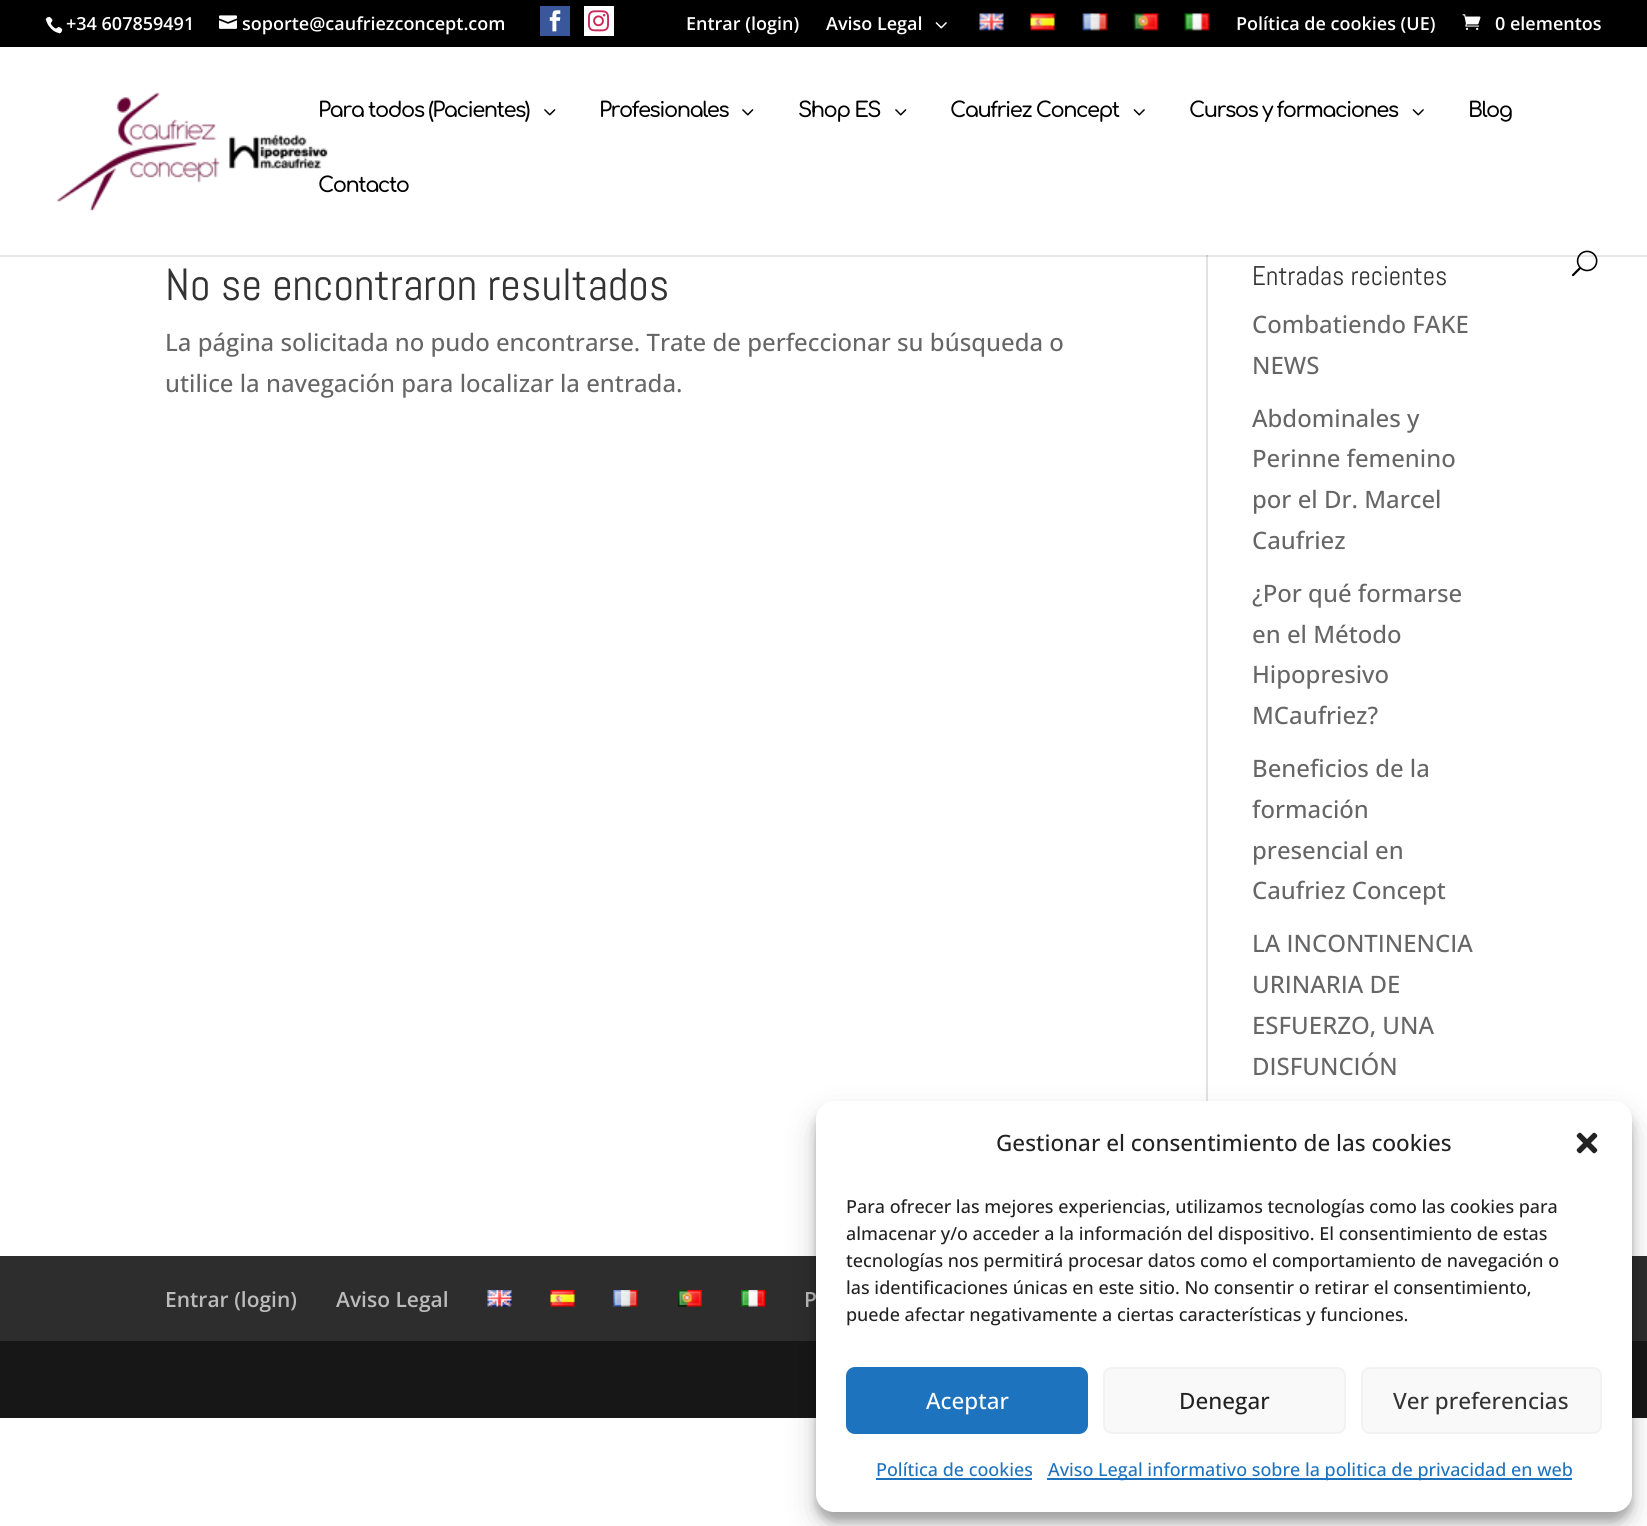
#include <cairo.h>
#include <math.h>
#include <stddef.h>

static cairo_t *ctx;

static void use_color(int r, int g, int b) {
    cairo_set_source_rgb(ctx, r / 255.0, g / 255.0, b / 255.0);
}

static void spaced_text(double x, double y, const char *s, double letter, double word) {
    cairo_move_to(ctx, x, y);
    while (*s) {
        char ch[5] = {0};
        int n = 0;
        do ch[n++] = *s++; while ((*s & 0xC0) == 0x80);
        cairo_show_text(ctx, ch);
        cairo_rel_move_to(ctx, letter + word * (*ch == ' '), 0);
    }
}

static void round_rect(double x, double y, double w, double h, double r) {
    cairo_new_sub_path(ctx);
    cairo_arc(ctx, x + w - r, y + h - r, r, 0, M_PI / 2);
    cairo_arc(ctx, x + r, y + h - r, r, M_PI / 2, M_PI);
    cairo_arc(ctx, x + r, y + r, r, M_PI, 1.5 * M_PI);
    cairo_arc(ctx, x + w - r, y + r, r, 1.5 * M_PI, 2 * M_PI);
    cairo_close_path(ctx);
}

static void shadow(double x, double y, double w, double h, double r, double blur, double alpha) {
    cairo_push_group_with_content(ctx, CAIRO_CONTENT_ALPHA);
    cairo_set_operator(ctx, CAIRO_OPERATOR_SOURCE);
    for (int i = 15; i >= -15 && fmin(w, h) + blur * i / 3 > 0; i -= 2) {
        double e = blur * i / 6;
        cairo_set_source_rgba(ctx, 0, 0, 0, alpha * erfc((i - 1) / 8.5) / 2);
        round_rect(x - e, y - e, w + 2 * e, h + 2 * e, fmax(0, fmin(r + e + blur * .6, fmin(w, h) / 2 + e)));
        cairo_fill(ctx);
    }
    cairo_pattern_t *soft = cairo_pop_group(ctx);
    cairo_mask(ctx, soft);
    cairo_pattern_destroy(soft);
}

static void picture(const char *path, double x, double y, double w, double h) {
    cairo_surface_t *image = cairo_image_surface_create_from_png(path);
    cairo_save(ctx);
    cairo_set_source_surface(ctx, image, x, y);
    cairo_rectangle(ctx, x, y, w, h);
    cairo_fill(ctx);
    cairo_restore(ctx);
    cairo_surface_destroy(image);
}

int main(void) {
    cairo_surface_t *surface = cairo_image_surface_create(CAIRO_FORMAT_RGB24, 1647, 1526);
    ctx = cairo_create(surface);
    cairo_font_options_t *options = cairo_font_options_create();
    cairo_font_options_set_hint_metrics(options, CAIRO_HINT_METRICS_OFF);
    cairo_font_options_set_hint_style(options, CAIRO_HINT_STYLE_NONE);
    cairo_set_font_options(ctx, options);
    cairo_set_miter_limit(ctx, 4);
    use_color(255, 255, 255);
    cairo_paint(ctx);
    use_color(230, 230, 230);
    cairo_rectangle(ctx, 0, 255, 1647, 2);
    cairo_fill(ctx);
    use_color(0, 0, 0);
    cairo_rectangle(ctx, 0, 0, 1647, 47);
    cairo_fill(ctx);
    picture("img1.png", 45, 16, 18, 18);
    cairo_select_font_face(ctx, "Open Sans SemiBold", CAIRO_FONT_SLANT_NORMAL, CAIRO_FONT_WEIGHT_NORMAL);
    cairo_set_font_size(ctx, 18);
    use_color(255, 255, 255);
    cairo_move_to(ctx, 66, 30);
    cairo_show_text(ctx, "+34 607859491");
    picture("img2.png", 219, 15, 18, 14);
    cairo_move_to(ctx, 242, 30);
    cairo_show_text(ctx, "soporte@caufriezconcept.com");
    use_color(57, 87, 154);
    cairo_rectangle(ctx, 540, 6, 30, 30);
    cairo_fill(ctx);
    picture("img3.png", 549, 10, 12, 22);
    use_color(255, 255, 255);
    cairo_rectangle(ctx, 584, 6, 30, 30);
    cairo_fill(ctx);
    picture("img4.png", 588, 10, 21, 22);
    cairo_move_to(ctx, 686, 30);
    cairo_show_text(ctx, "Entrar (login)");
    cairo_move_to(ctx, 826, 30);
    cairo_show_text(ctx, "Aviso Legal");
    picture("img5.png", 935, 22, 12, 7);
    picture("img6.png", 979, 13, 25, 18);
    picture("img7.png", 1030, 13, 25, 18);
    picture("img8.png", 1082, 13, 26, 18);
    picture("img9.png", 1133, 13, 26, 18);
    picture("img10.png", 1184, 13, 26, 18);
    cairo_move_to(ctx, 1236, 30);
    cairo_show_text(ctx, "Política de cookies (UE)");
    picture("img11.png", 1462, 14, 19, 16);
    cairo_move_to(ctx, 1495, 30);
    cairo_show_text(ctx, "0 elementos");
    picture("img12.png", 56, 92, 272, 119);
    cairo_select_font_face(ctx, "Comfortaa SemiBold", CAIRO_FONT_SLANT_NORMAL, CAIRO_FONT_WEIGHT_NORMAL);
    cairo_set_font_size(ctx, 21);
    use_color(0, 0, 0);
    spaced_text(318, 117, "Para todos (Pacientes)", -1.5, 0);
    picture("img13.png", 544, 109, 12, 7);
    spaced_text(599, 117, "Profesionales", -1.5, 0);
    picture("img13.png", 742, 109, 12, 7);
    spaced_text(798, 117, "Shop ES", -1.5, 0);
    picture("img13.png", 895, 109, 12, 7);
    spaced_text(950, 117, "Caufriez Concept", -1.5, 0);
    picture("img14.png", 1133, 109, 12, 7);
    spaced_text(1189, 117, "Cursos y formaciones", -1.5, 0);
    picture("img14.png", 1412, 109, 12, 7);
    spaced_text(1468, 117, "Blog", -1.5, 0);
    spaced_text(318, 192, "Contacto", -1.5, 0);
    picture("img15.png", 1571, 250, 27, 27);
    use_color(226, 226, 226);
    cairo_rectangle(ctx, 1206, 257, 2, 844);
    cairo_fill(ctx);
    use_color(203, 203, 203);
    cairo_rectangle(ctx, 1206, 255, 2, 2);
    cairo_fill(ctx);
    cairo_select_font_face(ctx, "Abel", CAIRO_FONT_SLANT_NORMAL, CAIRO_FONT_WEIGHT_NORMAL);
    cairo_set_font_size(ctx, 45);
    use_color(51, 51, 51);
    cairo_move_to(ctx, 165, 300);
    cairo_show_text(ctx, "No se encontraron resultados");
    cairo_select_font_face(ctx, "Open Sans Medium", CAIRO_FONT_SLANT_NORMAL, CAIRO_FONT_WEIGHT_NORMAL);
    cairo_set_font_size(ctx, 24);
    use_color(102, 102, 102);
    cairo_move_to(ctx, 165, 351);
    cairo_show_text(ctx, "La página solicitada no pudo encontrarse. Trate de perfeccionar su búsqueda o");
    cairo_move_to(ctx, 165, 392);
    cairo_show_text(ctx, "utilice la navegación para localizar la entrada.");
    cairo_select_font_face(ctx, "Abel", CAIRO_FONT_SLANT_NORMAL, CAIRO_FONT_WEIGHT_NORMAL);
    cairo_set_font_size(ctx, 27);
    use_color(51, 51, 51);
    cairo_move_to(ctx, 1252, 285);
    cairo_show_text(ctx, "Entradas recientes");
    cairo_select_font_face(ctx, "Open Sans Medium", CAIRO_FONT_SLANT_NORMAL, CAIRO_FONT_WEIGHT_NORMAL);
    cairo_set_font_size(ctx, 24);
    use_color(102, 102, 102);
    cairo_move_to(ctx, 1252, 333);
    cairo_show_text(ctx, "Combatiendo FAKE");
    cairo_move_to(ctx, 1252, 374);
    cairo_show_text(ctx, "NEWS");
    cairo_move_to(ctx, 1252, 427);
    cairo_show_text(ctx, "Abdominales y");
    cairo_move_to(ctx, 1252, 467);
    cairo_show_text(ctx, "Perinne femenino");
    cairo_move_to(ctx, 1252, 508);
    cairo_show_text(ctx, "por el Dr. Marcel");
    cairo_move_to(ctx, 1252, 549);
    cairo_show_text(ctx, "Caufriez");
    cairo_move_to(ctx, 1252, 602);
    cairo_show_text(ctx, "¿Por qué formarse");
    cairo_move_to(ctx, 1252, 643);
    cairo_show_text(ctx, "en el Método");
    cairo_move_to(ctx, 1252, 683);
    cairo_show_text(ctx, "Hipopresivo");
    cairo_move_to(ctx, 1252, 724);
    cairo_show_text(ctx, "MCaufriez?");
    cairo_move_to(ctx, 1252, 777);
    cairo_show_text(ctx, "Beneficios de la");
    cairo_move_to(ctx, 1252, 818);
    cairo_show_text(ctx, "formación");
    cairo_move_to(ctx, 1252, 859);
    cairo_show_text(ctx, "presencial en");
    cairo_move_to(ctx, 1252, 899);
    cairo_show_text(ctx, "Caufriez Concept");
    cairo_move_to(ctx, 1252, 952);
    cairo_show_text(ctx, "LA INCONTINENCIA");
    cairo_move_to(ctx, 1252, 993);
    cairo_show_text(ctx, "URINARIA DE");
    cairo_move_to(ctx, 1252, 1034);
    cairo_show_text(ctx, "ESFUERZO, UNA");
    cairo_move_to(ctx, 1252, 1075);
    cairo_show_text(ctx, "DISFUNCIÓN");
    use_color(45, 45, 45);
    cairo_rectangle(ctx, 0, 1256, 1647, 85);
    cairo_fill(ctx);
    cairo_select_font_face(ctx, "Open Sans SemiBold", CAIRO_FONT_SLANT_NORMAL, CAIRO_FONT_WEIGHT_NORMAL);
    cairo_set_font_size(ctx, 21);
    use_color(187, 187, 187);
    cairo_move_to(ctx, 165, 1307);
    cairo_show_text(ctx, "Entrar (login)");
    cairo_move_to(ctx, 336, 1307);
    cairo_show_text(ctx, "Aviso Legal");
    picture("img16.png", 487, 1290, 25, 17);
    picture("img17.png", 550, 1290, 25, 17);
    picture("img18.png", 613, 1290, 25, 17);
    picture("img19.png", 678, 1290, 24, 17);
    picture("img20.png", 741, 1290, 24, 17);
    cairo_move_to(ctx, 804, 1307);
    cairo_show_text(ctx, "P");
    use_color(23, 23, 23);
    cairo_rectangle(ctx, 0, 1341, 1647, 77);
    cairo_fill(ctx);
    use_color(0, 0, 0);
    shadow(816, 1110, 816, 411, 18, 4.5, 0.23);
    shadow(816, 1116, 816, 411, 18, 15, 0.19);
    use_color(255, 255, 255);
    round_rect(816, 1101, 816, 411, 18);
    cairo_fill(ctx);
    cairo_select_font_face(ctx, "Open Sans Medium", CAIRO_FONT_SLANT_NORMAL, CAIRO_FONT_WEIGHT_NORMAL);
    cairo_set_font_size(ctx, 22.5);
    use_color(34, 34, 34);
    cairo_move_to(ctx, 996, 1151);
    cairo_show_text(ctx, "Gestionar el consentimiento de las cookies");
    picture("img21.png", 1576, 1132, 22, 22);
    cairo_set_font_size(ctx, 18);
    cairo_move_to(ctx, 846, 1213);
    cairo_show_text(ctx, "Para ofrecer las mejores experiencias, utilizamos tecnologías como las cookies para");
    cairo_move_to(ctx, 846, 1240);
    cairo_show_text(ctx, "almacenar y/o acceder a la información del dispositivo. El consentimiento de estas");
    cairo_move_to(ctx, 846, 1267);
    cairo_show_text(ctx, "tecnologías nos permitirá procesar datos como el comportamiento de navegación o");
    cairo_move_to(ctx, 846, 1294);
    cairo_show_text(ctx, "las identificaciones únicas en este sitio. No consentir o retirar el consentimiento,");
    cairo_move_to(ctx, 846, 1321);
    cairo_show_text(ctx, "puede afectar negativamente a ciertas características y funciones.");
    use_color(30, 115, 190);
    round_rect(847, 1368, 240, 65, 8);
    cairo_fill_preserve(ctx);
    cairo_stroke(ctx);
    cairo_set_font_size(ctx, 22.5);
    use_color(255, 255, 255);
    cairo_move_to(ctx, 926, 1409);
    cairo_show_text(ctx, "Aceptar");
    use_color(249, 249, 249);
    round_rect(1104, 1368, 241, 65, 8);
    cairo_fill_preserve(ctx);
    use_color(242, 242, 242);
    cairo_stroke(ctx);
    use_color(34, 34, 34);
    cairo_move_to(ctx, 1179, 1409);
    cairo_show_text(ctx, "Denegar");
    use_color(249, 249, 249);
    round_rect(1362, 1368, 239, 65, 8);
    cairo_fill_preserve(ctx);
    use_color(242, 242, 242);
    cairo_stroke(ctx);
    use_color(51, 51, 51);
    cairo_move_to(ctx, 1393, 1409);
    cairo_show_text(ctx, "Ver preferencias");
    cairo_set_font_size(ctx, 18);
    use_color(30, 115, 190);
    cairo_move_to(ctx, 876, 1476);
    cairo_show_text(ctx, "Política de cookies");
    cairo_rectangle(ctx, 876, 1478, 156, 2);
    cairo_fill(ctx);
    cairo_rectangle(ctx, 1047, 1478, 525, 2);
    cairo_fill(ctx);
    cairo_move_to(ctx, 1048, 1476);
    cairo_show_text(ctx, "Aviso Legal informativo sobre la politica de privacidad en web");
    cairo_surface_write_to_png(surface, "result.png");
    cairo_font_options_destroy(options);
    cairo_destroy(ctx);
    cairo_surface_destroy(surface);
    return 0;
}
